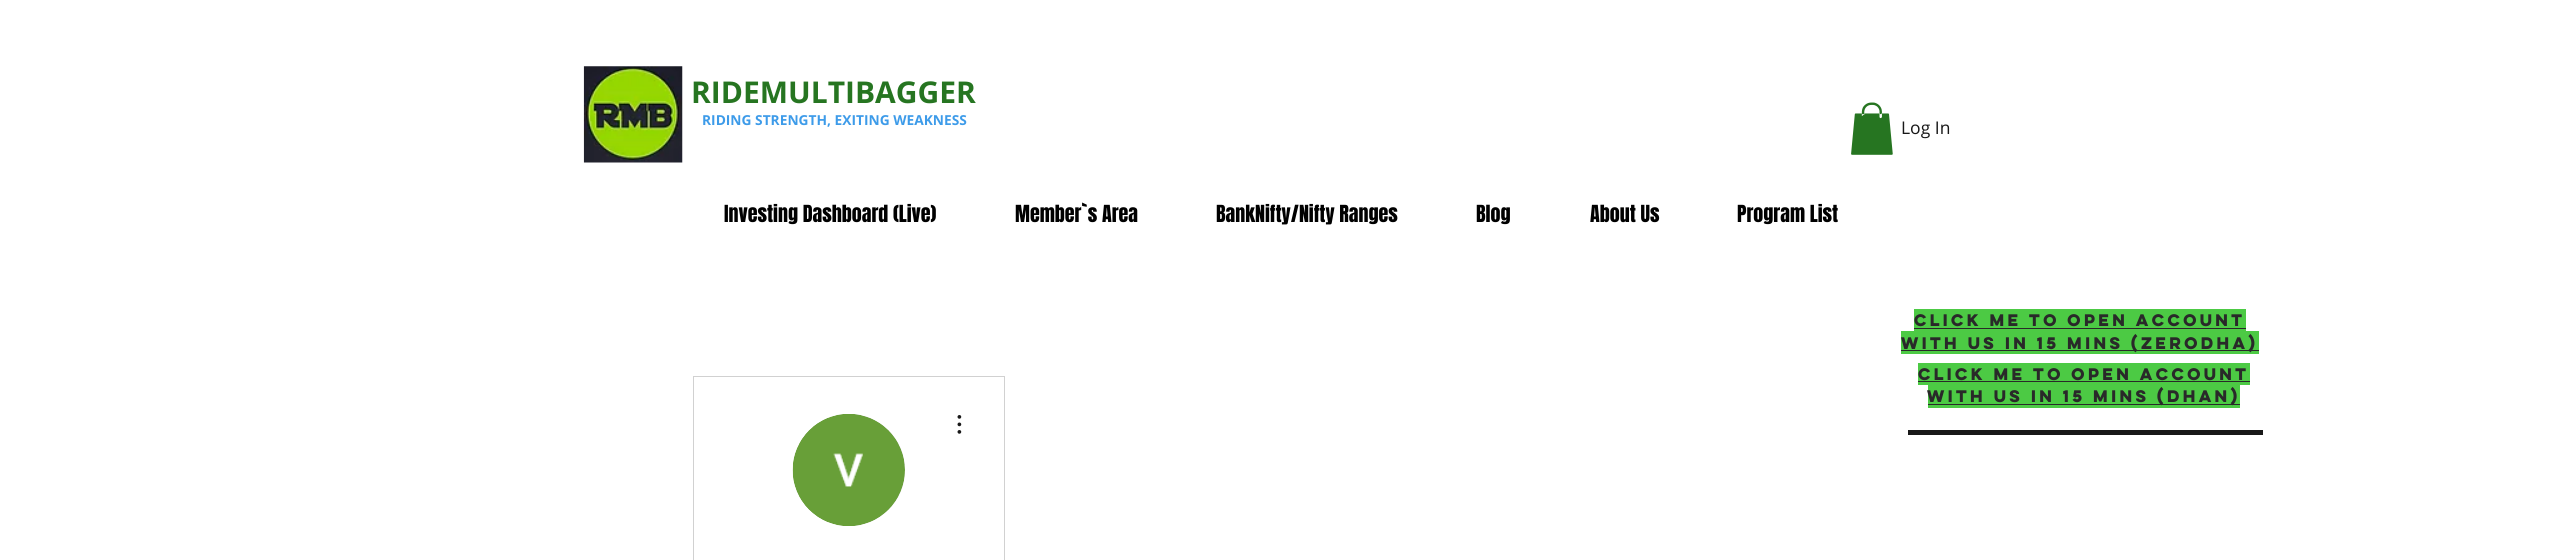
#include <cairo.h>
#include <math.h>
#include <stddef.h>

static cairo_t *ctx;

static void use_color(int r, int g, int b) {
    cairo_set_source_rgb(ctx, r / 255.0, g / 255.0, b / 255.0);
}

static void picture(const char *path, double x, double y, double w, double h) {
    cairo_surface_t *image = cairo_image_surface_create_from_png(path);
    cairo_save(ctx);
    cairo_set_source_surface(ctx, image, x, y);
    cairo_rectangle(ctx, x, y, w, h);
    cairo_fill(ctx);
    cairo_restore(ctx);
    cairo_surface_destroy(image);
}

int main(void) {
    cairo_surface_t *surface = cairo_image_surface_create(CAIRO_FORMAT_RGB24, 2558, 560);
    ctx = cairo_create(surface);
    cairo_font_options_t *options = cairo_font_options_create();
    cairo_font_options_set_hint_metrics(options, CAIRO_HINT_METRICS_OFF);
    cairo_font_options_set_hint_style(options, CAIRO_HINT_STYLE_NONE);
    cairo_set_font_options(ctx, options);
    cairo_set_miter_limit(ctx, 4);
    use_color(255, 255, 255);
    cairo_paint(ctx);
    picture("img1.png", 583, 66, 100, 97);
    cairo_select_font_face(ctx, "Open Sans", CAIRO_FONT_SLANT_NORMAL, CAIRO_FONT_WEIGHT_BOLD);
    cairo_set_font_size(ctx, 30);
    use_color(38, 117, 33);
    cairo_move_to(ctx, 691, 103);
    cairo_show_text(ctx, "RIDEMULTIBAGGER");
    cairo_set_font_size(ctx, 13.75);
    use_color(61, 155, 233);
    cairo_move_to(ctx, 702, 125);
    cairo_show_text(ctx, "RIDING STRENGTH, EXITING WEAKNESS");
    picture("img2.png", 1861, 114, 4, 5);
    cairo_select_font_face(ctx, "Open Sans", CAIRO_FONT_SLANT_NORMAL, CAIRO_FONT_WEIGHT_NORMAL);
    cairo_set_font_size(ctx, 17.5);
    use_color(24, 24, 24);
    cairo_move_to(ctx, 1901, 134);
    cairo_show_text(ctx, "Log In");
    picture("img3.png", 1851, 102, 42, 53);
    cairo_select_font_face(ctx, "Anton", CAIRO_FONT_SLANT_NORMAL, CAIRO_FONT_WEIGHT_NORMAL);
    cairo_set_font_size(ctx, 20);
    use_color(0, 0, 0);
    cairo_move_to(ctx, 724, 222);
    cairo_show_text(ctx, "Investing Dashboard (Live)");
    cairo_move_to(ctx, 1015, 222);
    cairo_show_text(ctx, "Member`s Area");
    cairo_move_to(ctx, 1216, 222);
    cairo_show_text(ctx, "BankNifty/Nifty Ranges");
    cairo_move_to(ctx, 1476, 222);
    cairo_show_text(ctx, "Blog");
    cairo_move_to(ctx, 1590, 222);
    cairo_show_text(ctx, "About Us");
    cairo_move_to(ctx, 1737, 222);
    cairo_show_text(ctx, "Program List");
    use_color(76, 202, 68);
    cairo_rectangle(ctx, 1914, 309, 332, 22);
    cairo_fill(ctx);
    cairo_select_font_face(ctx, "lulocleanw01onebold", CAIRO_FONT_SLANT_NORMAL, CAIRO_FONT_WEIGHT_BOLD);
    cairo_set_font_size(ctx, 15);
    use_color(41, 41, 41);
    cairo_move_to(ctx, 1914, 326);
    cairo_show_text(ctx, "click me to Open account");
    cairo_rectangle(ctx, 1914, 328, 332, 1);
    cairo_fill(ctx);
    use_color(76, 202, 68);
    cairo_rectangle(ctx, 1901, 331, 358, 23);
    cairo_fill(ctx);
    use_color(41, 41, 41);
    cairo_rectangle(ctx, 1901, 350, 358, 1);
    cairo_fill(ctx);
    cairo_move_to(ctx, 1901, 349);
    cairo_show_text(ctx, "with us in 15 mins (ZERODHA)");
    cairo_rectangle(ctx, 693.5, 376.5, 311, 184);
    use_color(209, 209, 209);
    cairo_set_line_width(ctx, 1);
    cairo_stroke(ctx);
    use_color(216, 216, 216);
    cairo_arc(ctx, 849, 470, 56, 0, 2 * M_PI);
    cairo_fill(ctx);
    picture("img4.png", 792, 414, 113, 112);
    picture("img5.png", 957, 415, 5, 19);
    use_color(76, 202, 68);
    cairo_rectangle(ctx, 1918, 363, 332, 22);
    cairo_fill(ctx);
    use_color(41, 41, 41);
    cairo_move_to(ctx, 1918, 380);
    cairo_show_text(ctx, "click me to Open account");
    cairo_rectangle(ctx, 1918, 381, 332, 1);
    cairo_fill(ctx);
    use_color(76, 202, 68);
    cairo_rectangle(ctx, 1928, 385, 312, 23);
    cairo_fill(ctx);
    use_color(41, 41, 41);
    cairo_rectangle(ctx, 1928, 404, 312, 1);
    cairo_fill(ctx);
    cairo_move_to(ctx, 1927, 402);
    cairo_show_text(ctx, "with us in 15 mins (DHAN)");
    use_color(24, 24, 24);
    cairo_rectangle(ctx, 1908, 430, 355, 5);
    cairo_fill(ctx);
    cairo_surface_write_to_png(surface, "result.png");
    cairo_font_options_destroy(options);
    cairo_destroy(ctx);
    cairo_surface_destroy(surface);
    return 0;
}
